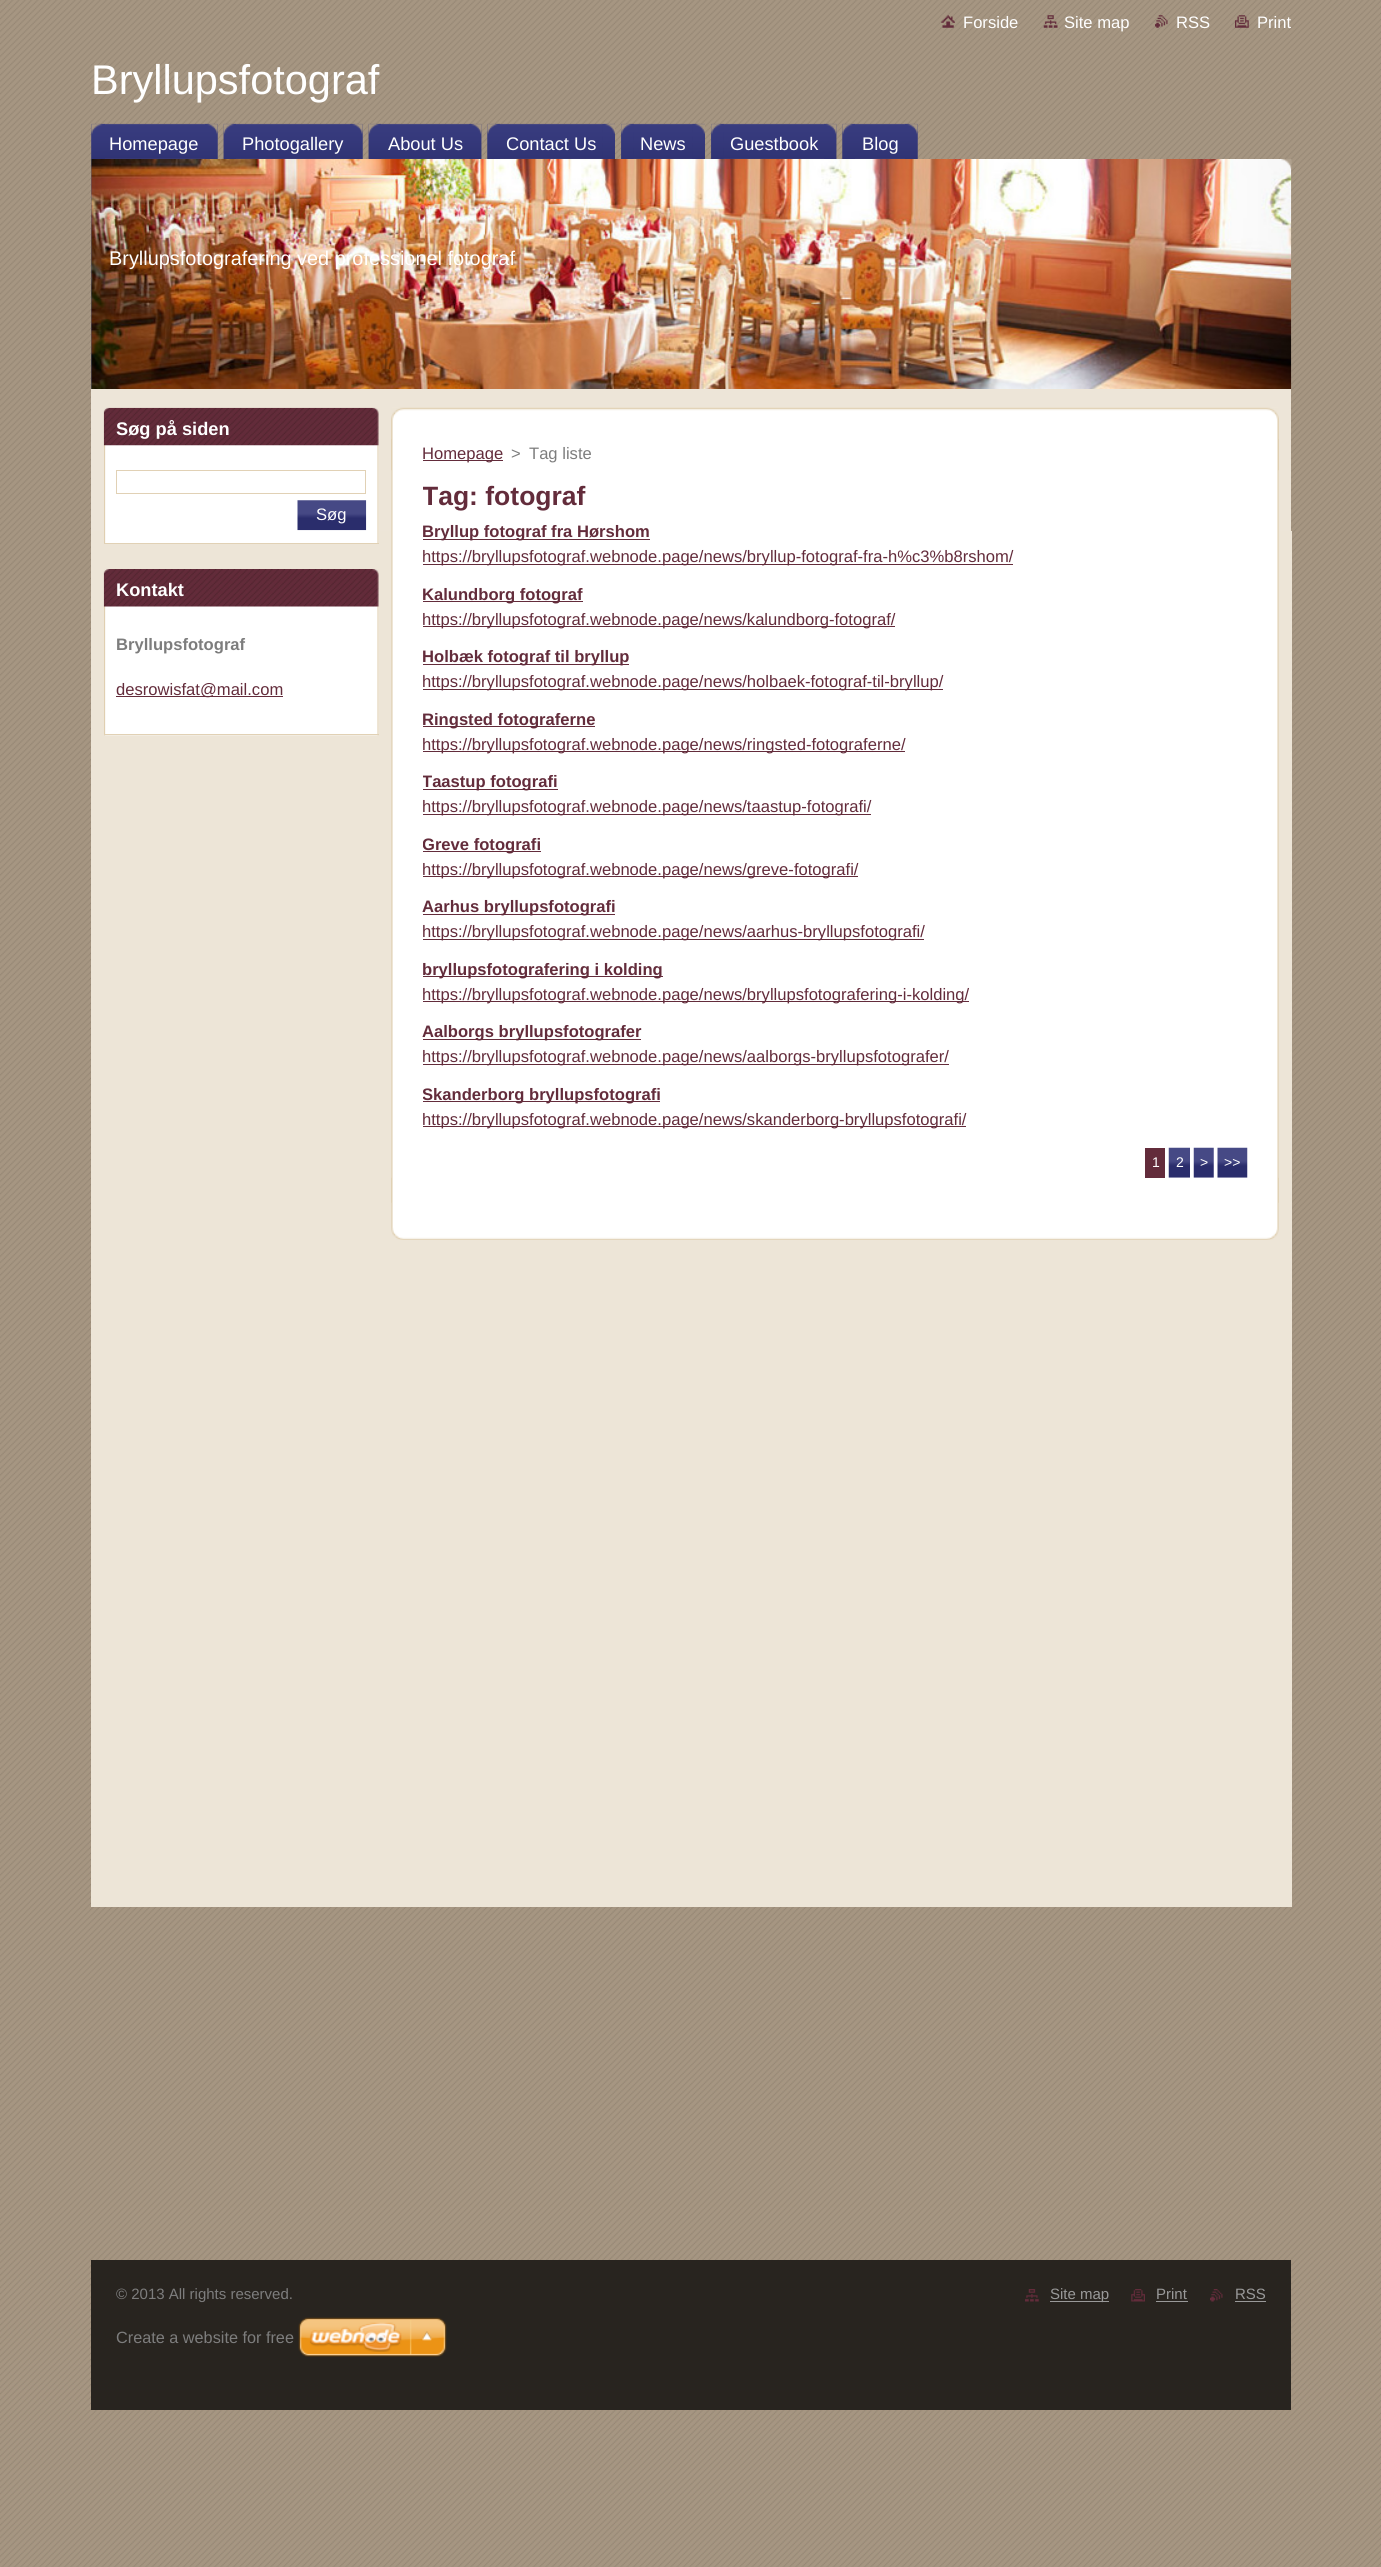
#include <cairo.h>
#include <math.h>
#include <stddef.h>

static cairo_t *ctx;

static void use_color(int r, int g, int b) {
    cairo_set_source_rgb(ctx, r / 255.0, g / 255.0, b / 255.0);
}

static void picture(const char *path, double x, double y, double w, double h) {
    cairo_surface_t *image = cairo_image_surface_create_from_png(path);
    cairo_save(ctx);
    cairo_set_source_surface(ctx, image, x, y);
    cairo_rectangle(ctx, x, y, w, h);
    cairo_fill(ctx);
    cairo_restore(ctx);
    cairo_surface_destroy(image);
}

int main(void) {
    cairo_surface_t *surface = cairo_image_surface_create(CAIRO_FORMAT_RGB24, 1381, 2567);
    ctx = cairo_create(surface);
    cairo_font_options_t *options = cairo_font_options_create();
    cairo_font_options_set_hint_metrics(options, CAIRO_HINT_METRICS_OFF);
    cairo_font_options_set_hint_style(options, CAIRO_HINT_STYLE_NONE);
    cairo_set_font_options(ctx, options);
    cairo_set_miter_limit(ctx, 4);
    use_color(255, 255, 255);
    cairo_paint(ctx);
    picture("img1.png", 0, 0, 1381, 2567);
    use_color(237, 229, 215);
    cairo_rectangle(ctx, 91, 531, 1201, 1376);
    cairo_fill(ctx);
    picture("img2.png", 941, 15, 14, 13);
    cairo_select_font_face(ctx, "Liberation Sans", CAIRO_FONT_SLANT_NORMAL, CAIRO_FONT_WEIGHT_NORMAL);
    cairo_set_font_size(ctx, 16.6);
    use_color(255, 255, 255);
    cairo_move_to(ctx, 963, 28);
    cairo_show_text(ctx, "Forside");
    picture("img3.png", 1043, 15, 15, 13);
    cairo_move_to(ctx, 1064, 28);
    cairo_show_text(ctx, "Site map");
    picture("img4.png", 1155, 15, 13, 13);
    cairo_move_to(ctx, 1176, 28);
    cairo_show_text(ctx, "RSS");
    picture("img5.png", 1235, 15, 14, 13);
    cairo_move_to(ctx, 1257, 28);
    cairo_show_text(ctx, "Print");
    cairo_set_font_size(ctx, 41.5);
    cairo_move_to(ctx, 91, 94);
    cairo_show_text(ctx, "Bryllupsfotograf");
    picture("img6.png", 91, 123, 127, 36);
    picture("img7.png", 91, 123, 14, 36);
    picture("img8.png", 205, 123, 13, 36);
    cairo_set_font_size(ctx, 18.25);
    cairo_move_to(ctx, 109, 150);
    cairo_show_text(ctx, "Homepage");
    picture("img9.png", 223, 123, 140, 36);
    picture("img10.png", 223, 123, 13, 36);
    picture("img11.png", 350, 123, 13, 36);
    cairo_move_to(ctx, 242, 150);
    cairo_show_text(ctx, "Photogallery");
    picture("img12.png", 368, 123, 114, 36);
    picture("img13.png", 368, 123, 13, 36);
    picture("img14.png", 469, 123, 13, 36);
    cairo_move_to(ctx, 388, 150);
    cairo_show_text(ctx, "About Us");
    picture("img15.png", 487, 123, 128, 36);
    picture("img16.png", 487, 123, 13, 36);
    picture("img17.png", 602, 123, 13, 36);
    cairo_move_to(ctx, 506, 150);
    cairo_show_text(ctx, "Contact Us");
    picture("img18.png", 621, 123, 84, 36);
    picture("img19.png", 621, 123, 13, 36);
    picture("img20.png", 692, 123, 13, 36);
    cairo_move_to(ctx, 640, 150);
    cairo_show_text(ctx, "News");
    picture("img21.png", 711, 123, 126, 36);
    picture("img22.png", 711, 123, 13, 36);
    picture("img23.png", 824, 123, 13, 36);
    cairo_move_to(ctx, 730, 150);
    cairo_show_text(ctx, "Guestbook");
    picture("img24.png", 842, 123, 76, 36);
    picture("img25.png", 842, 123, 13, 36);
    picture("img26.png", 905, 123, 13, 36);
    cairo_move_to(ctx, 862, 150);
    cairo_show_text(ctx, "Blog");
    use_color(99, 100, 121);
    cairo_rectangle(ctx, 91, 159, 1, 230);
    cairo_fill(ctx);
    picture("img27.png", 91, 159, 1201, 230);
    picture("img28.png", 1281, 159, 10, 11);
    cairo_set_font_size(ctx, 19.9);
    use_color(255, 255, 255);
    cairo_move_to(ctx, 109, 265);
    cairo_show_text(ctx, "Bryllupsfotografering ved professionel fotograf");
    use_color(237, 229, 216);
    cairo_rectangle(ctx, 91, 389, 1200, 142);
    cairo_fill(ctx);
    use_color(255, 255, 255);
    cairo_rectangle(ctx, 378, 408, 1, 135);
    cairo_fill(ctx);
    picture("img29.png", 104, 408, 275, 135);
    use_color(225, 209, 181);
    cairo_rectangle(ctx, 104, 543, 275, 1);
    cairo_fill(ctx);
    picture("img30.png", 103, 407, 276, 39);
    cairo_select_font_face(ctx, "Liberation Sans", CAIRO_FONT_SLANT_NORMAL, CAIRO_FONT_WEIGHT_BOLD);
    cairo_set_font_size(ctx, 18.25);
    use_color(255, 255, 255);
    cairo_move_to(ctx, 116, 435);
    cairo_show_text(ctx, "Søg på siden");
    cairo_rectangle(ctx, 116.5, 470.5, 249, 23);
    use_color(225, 209, 181);
    cairo_set_line_width(ctx, 1);
    cairo_stroke(ctx);
    picture("img31.png", 297, 500, 70, 31);
    cairo_select_font_face(ctx, "Liberation Sans", CAIRO_FONT_SLANT_NORMAL, CAIRO_FONT_WEIGHT_NORMAL);
    cairo_set_font_size(ctx, 16.6);
    use_color(255, 255, 255);
    cairo_move_to(ctx, 316, 520);
    cairo_show_text(ctx, "Søg");
    cairo_rectangle(ctx, 378, 569, 1, 165);
    cairo_fill(ctx);
    picture("img32.png", 104, 569, 275, 167);
    use_color(225, 209, 181);
    cairo_rectangle(ctx, 104, 734, 275, 1);
    cairo_fill(ctx);
    picture("img33.png", 103, 569, 276, 38);
    cairo_select_font_face(ctx, "Liberation Sans", CAIRO_FONT_SLANT_NORMAL, CAIRO_FONT_WEIGHT_BOLD);
    cairo_set_font_size(ctx, 18.25);
    use_color(255, 255, 255);
    cairo_move_to(ctx, 116, 596);
    cairo_show_text(ctx, "Kontakt");
    cairo_set_font_size(ctx, 16.6);
    use_color(125, 125, 125);
    cairo_move_to(ctx, 116, 650);
    cairo_show_text(ctx, "Bryllupsfotograf");
    use_color(99, 44, 59);
    cairo_rectangle(ctx, 116, 696, 167, 1);
    cairo_fill(ctx);
    cairo_select_font_face(ctx, "Liberation Sans", CAIRO_FONT_SLANT_NORMAL, CAIRO_FONT_WEIGHT_NORMAL);
    cairo_move_to(ctx, 116, 695);
    cairo_show_text(ctx, "desrowisfat@mail.com");
    picture("img34.png", 391, 407, 888, 64);
    picture("img35.png", 391, 1177, 888, 63);
    picture("img36.png", 391, 439, 888, 764);
    cairo_rectangle(ctx, 423, 460, 80, 1);
    cairo_fill(ctx);
    cairo_move_to(ctx, 422, 459);
    cairo_show_text(ctx, "Homepage");
    use_color(125, 125, 125);
    cairo_move_to(ctx, 511, 459);
    cairo_show_text(ctx, ">");
    cairo_move_to(ctx, 529, 459);
    cairo_show_text(ctx, "Tag liste");
    cairo_save(ctx);
    cairo_rectangle(ctx, 423, 481, 825, 697);
    cairo_clip(ctx);
    cairo_select_font_face(ctx, "Liberation Sans", CAIRO_FONT_SLANT_NORMAL, CAIRO_FONT_WEIGHT_BOLD);
    cairo_set_font_size(ctx, 26.5);
    use_color(99, 44, 59);
    cairo_move_to(ctx, 422, 505);
    cairo_show_text(ctx, "Tag: fotograf");
    cairo_restore(ctx);
    use_color(99, 44, 59);
    cairo_rectangle(ctx, 423, 539, 227, 1);
    cairo_fill(ctx);
    cairo_select_font_face(ctx, "Liberation Sans", CAIRO_FONT_SLANT_NORMAL, CAIRO_FONT_WEIGHT_BOLD);
    cairo_move_to(ctx, 422, 537);
    cairo_show_text(ctx, "Bryllup fotograf fra Hørshom");
    cairo_rectangle(ctx, 423, 564, 590, 1);
    cairo_fill(ctx);
    cairo_select_font_face(ctx, "Liberation Sans", CAIRO_FONT_SLANT_NORMAL, CAIRO_FONT_WEIGHT_NORMAL);
    cairo_move_to(ctx, 422, 562);
    cairo_show_text(ctx, "https://bryllupsfotograf.webnode.page/news/bryllup-fotograf-fra-h%c3%b8rshom/");
    cairo_rectangle(ctx, 423, 601, 160, 1);
    cairo_fill(ctx);
    cairo_select_font_face(ctx, "Liberation Sans", CAIRO_FONT_SLANT_NORMAL, CAIRO_FONT_WEIGHT_BOLD);
    cairo_move_to(ctx, 422, 600);
    cairo_show_text(ctx, "Kalundborg fotograf");
    cairo_rectangle(ctx, 423, 626, 472, 1);
    cairo_fill(ctx);
    cairo_select_font_face(ctx, "Liberation Sans", CAIRO_FONT_SLANT_NORMAL, CAIRO_FONT_WEIGHT_NORMAL);
    cairo_move_to(ctx, 422, 625);
    cairo_show_text(ctx, "https://bryllupsfotograf.webnode.page/news/kalundborg-fotograf/");
    cairo_rectangle(ctx, 423, 664, 206, 1);
    cairo_fill(ctx);
    cairo_select_font_face(ctx, "Liberation Sans", CAIRO_FONT_SLANT_NORMAL, CAIRO_FONT_WEIGHT_BOLD);
    cairo_move_to(ctx, 422, 662);
    cairo_show_text(ctx, "Holbæk fotograf til bryllup");
    cairo_rectangle(ctx, 423, 689, 520, 1);
    cairo_fill(ctx);
    cairo_select_font_face(ctx, "Liberation Sans", CAIRO_FONT_SLANT_NORMAL, CAIRO_FONT_WEIGHT_NORMAL);
    cairo_move_to(ctx, 422, 687);
    cairo_show_text(ctx, "https://bryllupsfotograf.webnode.page/news/holbaek-fotograf-til-bryllup/");
    cairo_rectangle(ctx, 423, 726, 172, 1);
    cairo_fill(ctx);
    cairo_select_font_face(ctx, "Liberation Sans", CAIRO_FONT_SLANT_NORMAL, CAIRO_FONT_WEIGHT_BOLD);
    cairo_move_to(ctx, 422, 725);
    cairo_show_text(ctx, "Ringsted fotograferne");
    cairo_rectangle(ctx, 423, 751, 482, 1);
    cairo_fill(ctx);
    cairo_select_font_face(ctx, "Liberation Sans", CAIRO_FONT_SLANT_NORMAL, CAIRO_FONT_WEIGHT_NORMAL);
    cairo_move_to(ctx, 422, 750);
    cairo_show_text(ctx, "https://bryllupsfotograf.webnode.page/news/ringsted-fotograferne/");
    cairo_rectangle(ctx, 423, 789, 135, 1);
    cairo_fill(ctx);
    cairo_save(ctx);
    cairo_rectangle(ctx, 423, 523, 825, 655);
    cairo_clip(ctx);
    cairo_select_font_face(ctx, "Liberation Sans", CAIRO_FONT_SLANT_NORMAL, CAIRO_FONT_WEIGHT_BOLD);
    cairo_move_to(ctx, 422, 787);
    cairo_show_text(ctx, "Taastup fotografi");
    cairo_restore(ctx);
    cairo_rectangle(ctx, 423, 814, 448, 1);
    cairo_fill(ctx);
    cairo_move_to(ctx, 422, 812);
    cairo_show_text(ctx, "https://bryllupsfotograf.webnode.page/news/taastup-fotografi/");
    cairo_rectangle(ctx, 423, 851, 118, 1);
    cairo_fill(ctx);
    cairo_save(ctx);
    cairo_rectangle(ctx, 423, 523, 825, 655);
    cairo_clip(ctx);
    cairo_select_font_face(ctx, "Liberation Sans", CAIRO_FONT_SLANT_NORMAL, CAIRO_FONT_WEIGHT_BOLD);
    cairo_move_to(ctx, 422, 850);
    cairo_show_text(ctx, "Greve fotografi");
    cairo_restore(ctx);
    cairo_rectangle(ctx, 423, 876, 435, 1);
    cairo_fill(ctx);
    cairo_move_to(ctx, 422, 875);
    cairo_show_text(ctx, "https://bryllupsfotograf.webnode.page/news/greve-fotografi/");
    cairo_rectangle(ctx, 423, 914, 192, 1);
    cairo_fill(ctx);
    cairo_select_font_face(ctx, "Liberation Sans", CAIRO_FONT_SLANT_NORMAL, CAIRO_FONT_WEIGHT_BOLD);
    cairo_move_to(ctx, 422, 912);
    cairo_show_text(ctx, "Aarhus bryllupsfotografi");
    cairo_rectangle(ctx, 423, 939, 501, 1);
    cairo_fill(ctx);
    cairo_select_font_face(ctx, "Liberation Sans", CAIRO_FONT_SLANT_NORMAL, CAIRO_FONT_WEIGHT_NORMAL);
    cairo_move_to(ctx, 422, 937);
    cairo_show_text(ctx, "https://bryllupsfotograf.webnode.page/news/aarhus-bryllupsfotografi/");
    cairo_rectangle(ctx, 423, 976, 240, 1);
    cairo_fill(ctx);
    cairo_select_font_face(ctx, "Liberation Sans", CAIRO_FONT_SLANT_NORMAL, CAIRO_FONT_WEIGHT_BOLD);
    cairo_move_to(ctx, 422, 975);
    cairo_show_text(ctx, "bryllupsfotografering i kolding");
    cairo_rectangle(ctx, 423, 1001, 546, 1);
    cairo_fill(ctx);
    cairo_select_font_face(ctx, "Liberation Sans", CAIRO_FONT_SLANT_NORMAL, CAIRO_FONT_WEIGHT_NORMAL);
    cairo_move_to(ctx, 422, 1000);
    cairo_show_text(ctx, "https://bryllupsfotograf.webnode.page/news/bryllupsfotografering-i-kolding/");
    cairo_rectangle(ctx, 423, 1039, 218, 1);
    cairo_fill(ctx);
    cairo_select_font_face(ctx, "Liberation Sans", CAIRO_FONT_SLANT_NORMAL, CAIRO_FONT_WEIGHT_BOLD);
    cairo_move_to(ctx, 422, 1037);
    cairo_show_text(ctx, "Aalborgs bryllupsfotografer");
    cairo_rectangle(ctx, 423, 1064, 526, 1);
    cairo_fill(ctx);
    cairo_select_font_face(ctx, "Liberation Sans", CAIRO_FONT_SLANT_NORMAL, CAIRO_FONT_WEIGHT_NORMAL);
    cairo_move_to(ctx, 422, 1062);
    cairo_show_text(ctx, "https://bryllupsfotograf.webnode.page/news/aalborgs-bryllupsfotografer/");
    cairo_rectangle(ctx, 423, 1101, 237, 1);
    cairo_fill(ctx);
    cairo_save(ctx);
    cairo_rectangle(ctx, 423, 523, 825, 655);
    cairo_clip(ctx);
    cairo_select_font_face(ctx, "Liberation Sans", CAIRO_FONT_SLANT_NORMAL, CAIRO_FONT_WEIGHT_BOLD);
    cairo_move_to(ctx, 422, 1100);
    cairo_show_text(ctx, "Skanderborg bryllupsfotografi");
    cairo_restore(ctx);
    cairo_rectangle(ctx, 423, 1126, 543, 1);
    cairo_fill(ctx);
    cairo_move_to(ctx, 422, 1125);
    cairo_show_text(ctx, "https://bryllupsfotograf.webnode.page/news/skanderborg-bryllupsfotografi/");
    cairo_rectangle(ctx, 1145, 1148, 20, 30);
    cairo_fill(ctx);
    cairo_set_font_size(ctx, 14);
    use_color(255, 255, 255);
    cairo_move_to(ctx, 1152, 1167);
    cairo_show_text(ctx, "1");
    picture("img37.png", 1168, 1147, 22, 31);
    cairo_move_to(ctx, 1176, 1167);
    cairo_show_text(ctx, "2");
    picture("img38.png", 1193, 1147, 21, 31);
    cairo_move_to(ctx, 1200, 1167);
    cairo_show_text(ctx, ">");
    picture("img39.png", 1217, 1147, 31, 31);
    cairo_move_to(ctx, 1224, 1167);
    cairo_show_text(ctx, ">>");
    use_color(40, 36, 31);
    cairo_rectangle(ctx, 91, 2260, 1200, 150);
    cairo_fill(ctx);
    cairo_set_font_size(ctx, 15);
    use_color(125, 125, 125);
    cairo_move_to(ctx, 116, 2299);
    cairo_show_text(ctx, "© 2013 All rights reserved.");
    picture("img40.png", 1025, 2289, 14, 13);
    use_color(153, 153, 153);
    cairo_rectangle(ctx, 1050, 2301, 59, 1);
    cairo_fill(ctx);
    cairo_move_to(ctx, 1050, 2299);
    cairo_show_text(ctx, "Site map");
    picture("img41.png", 1131, 2289, 14, 13);
    cairo_move_to(ctx, 1156, 2299);
    cairo_show_text(ctx, "Print");
    cairo_rectangle(ctx, 1156, 2301, 32, 1);
    cairo_fill(ctx);
    picture("img42.png", 1210, 2289, 13, 13);
    cairo_move_to(ctx, 1235, 2299);
    cairo_show_text(ctx, "RSS");
    cairo_rectangle(ctx, 1235, 2301, 31, 1);
    cairo_fill(ctx);
    cairo_set_font_size(ctx, 16.25);
    use_color(125, 125, 125);
    cairo_move_to(ctx, 116, 2343);
    cairo_show_text(ctx, "Create a website for free");
    picture("img43.png", 298, 2317, 149, 40);
    cairo_surface_write_to_png(surface, "result.png");
    cairo_font_options_destroy(options);
    cairo_destroy(ctx);
    cairo_surface_destroy(surface);
    return 0;
}
